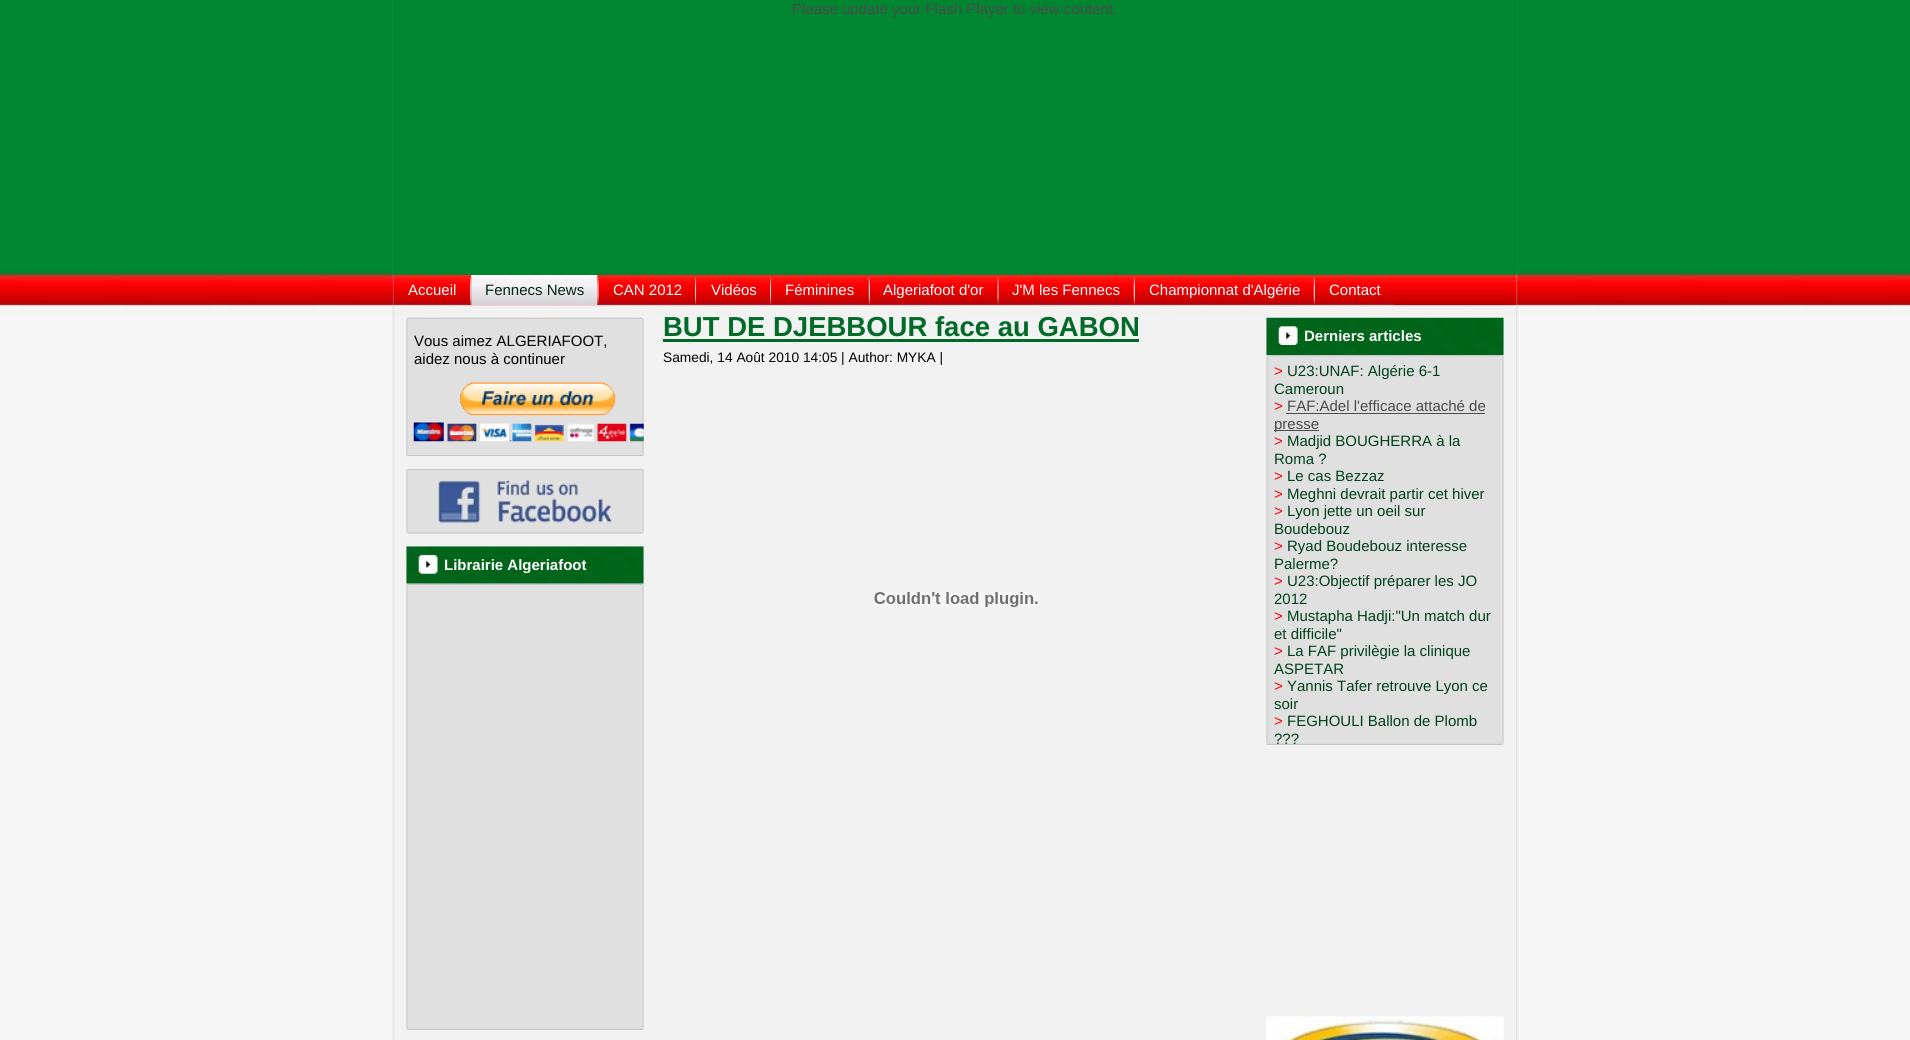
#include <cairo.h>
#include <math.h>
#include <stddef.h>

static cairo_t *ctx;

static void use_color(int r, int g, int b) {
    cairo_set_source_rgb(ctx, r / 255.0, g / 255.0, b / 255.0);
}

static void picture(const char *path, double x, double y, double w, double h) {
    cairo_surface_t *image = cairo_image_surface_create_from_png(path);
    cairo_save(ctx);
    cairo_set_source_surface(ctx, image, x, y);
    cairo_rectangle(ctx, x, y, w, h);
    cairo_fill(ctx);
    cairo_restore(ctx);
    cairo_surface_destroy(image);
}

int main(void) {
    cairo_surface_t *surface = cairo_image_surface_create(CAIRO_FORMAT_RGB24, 1910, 1040);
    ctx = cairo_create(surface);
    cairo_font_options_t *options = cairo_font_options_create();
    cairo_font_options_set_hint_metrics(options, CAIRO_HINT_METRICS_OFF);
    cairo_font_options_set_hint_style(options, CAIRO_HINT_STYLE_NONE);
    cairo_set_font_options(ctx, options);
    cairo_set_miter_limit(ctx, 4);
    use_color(247, 247, 248);
    cairo_paint(ctx);
    picture("img1.png", 0, 0, 1910, 315);
    cairo_set_source_rgba(ctx, 0.91, 0.91, 0.91, 0.3);
    cairo_rectangle(ctx, 393, 275, 1124, 765);
    cairo_fill(ctx);
    picture("img2.png", 392, 0, 2, 1040);
    picture("img55.png", 1516, 0, 2, 1040);
    use_color(0, 134, 48);
    cairo_rectangle(ctx, 393, 0, 1124, 275);
    cairo_fill(ctx);
    cairo_select_font_face(ctx, "Liberation Sans", CAIRO_FONT_SLANT_NORMAL, CAIRO_FONT_WEIGHT_NORMAL);
    cairo_set_font_size(ctx, 15);
    use_color(74, 74, 74);
    cairo_move_to(ctx, 792, 14);
    cairo_show_text(ctx, "Please update your Flash Player to view content.");
    picture("img3.png", 393, 275, 1124, 30);
    picture("img4.png", 393, 275, 77, 30);
    use_color(255, 255, 255);
    cairo_move_to(ctx, 408, 295);
    cairo_show_text(ctx, "Accueil");
    picture("img5.png", 470, 275, 2, 30);
    picture("img6.png", 471, 275, 127, 30);
    use_color(0, 41, 15);
    cairo_move_to(ctx, 485, 295);
    cairo_show_text(ctx, "Fennecs News");
    picture("img7.png", 597, 275, 2, 30);
    picture("img8.png", 598, 277, 97, 28);
    use_color(255, 255, 255);
    cairo_move_to(ctx, 613, 295);
    cairo_show_text(ctx, "CAN 2012");
    picture("img9.png", 695, 275, 2, 30);
    picture("img10.png", 696, 277, 74, 28);
    cairo_move_to(ctx, 711, 295);
    cairo_show_text(ctx, "Vidéos");
    picture("img5.png", 770, 275, 2, 30);
    picture("img11.png", 771, 277, 98, 28);
    cairo_move_to(ctx, 785, 295);
    cairo_show_text(ctx, "Féminines");
    picture("img12.png", 868, 275, 2, 30);
    picture("img13.png", 870, 301, 128, 4);
    cairo_move_to(ctx, 883, 295);
    cairo_show_text(ctx, "Algeriafoot d'or");
    picture("img14.png", 997, 275, 2, 30);
    picture("img15.png", 998, 277, 136, 28);
    cairo_move_to(ctx, 1012, 295);
    cairo_show_text(ctx, "J'M les Fennecs");
    picture("img16.png", 1133, 275, 2, 30);
    picture("img17.png", 1135, 301, 179, 4);
    cairo_move_to(ctx, 1149, 295);
    cairo_show_text(ctx, "Championnat d'Algérie");
    picture("img18.png", 1313, 275, 2, 30);
    picture("img19.png", 1315, 301, 80, 4);
    cairo_move_to(ctx, 1329, 295);
    cairo_show_text(ctx, "Contact");
    use_color(224, 224, 224);
    cairo_rectangle(ctx, 407, 318, 236, 137);
    cairo_fill(ctx);
    picture("img20.png", 406, 317, 2, 2);
    picture("img21.png", 408, 317, 234, 2);
    picture("img22.png", 642, 318, 2, 1);
    picture("img23.png", 406, 319, 2, 136);
    use_color(0, 0, 0);
    cairo_move_to(ctx, 414, 346);
    cairo_show_text(ctx, "Vous aimez ALGERIAFOOT,");
    cairo_move_to(ctx, 414, 364);
    cairo_show_text(ctx, "aidez nous à continuer");
    picture("img25.png", 642, 319, 2, 136);
    picture("img24.png", 413, 382, 231, 60);
    picture("img26.png", 406, 455, 2, 1);
    picture("img28.png", 642, 455, 2, 1);
    picture("img27.png", 407, 455, 236, 1);
    picture("img29.png", 406, 469, 2, 1);
    picture("img31.png", 642, 469, 2, 1);
    picture("img30.png", 407, 469, 236, 1);
    use_color(224, 224, 224);
    cairo_rectangle(ctx, 407, 470, 236, 63);
    cairo_fill(ctx);
    picture("img35.png", 406, 532, 2, 2);
    picture("img37.png", 642, 532, 2, 2);
    picture("img36.png", 407, 532, 236, 2);
    picture("img32.png", 406, 470, 2, 63);
    picture("img33.png", 438, 479, 174, 44);
    picture("img34.png", 642, 470, 2, 63);
    picture("img38.png", 406, 546, 238, 38);
    picture("img39.png", 418, 554, 20, 20);
    cairo_select_font_face(ctx, "Liberation Sans", CAIRO_FONT_SLANT_NORMAL, CAIRO_FONT_WEIGHT_BOLD);
    use_color(255, 255, 255);
    cairo_move_to(ctx, 444, 570);
    cairo_show_text(ctx, "Librairie Algeriafoot");
    picture("img29.png", 406, 584, 2, 1);
    picture("img31.png", 642, 584, 2, 1);
    picture("img40.png", 407, 583, 236, 2);
    use_color(224, 224, 224);
    cairo_rectangle(ctx, 407, 585, 236, 444);
    cairo_fill(ctx);
    picture("img44.png", 406, 1029, 2, 1);
    picture("img45.png", 642, 1029, 2, 1);
    picture("img43.png", 407, 1028, 236, 2);
    picture("img41.png", 406, 585, 2, 444);
    picture("img42.png", 642, 585, 2, 444);
    cairo_set_font_size(ctx, 27.5);
    use_color(0, 107, 39);
    cairo_move_to(ctx, 663, 336);
    cairo_show_text(ctx, "BUT DE DJEBBOUR face au GABON");
    cairo_rectangle(ctx, 663, 339, 476, 3);
    cairo_fill(ctx);
    cairo_select_font_face(ctx, "Liberation Sans", CAIRO_FONT_SLANT_NORMAL, CAIRO_FONT_WEIGHT_NORMAL);
    cairo_set_font_size(ctx, 13.75);
    use_color(0, 0, 0);
    cairo_move_to(ctx, 663, 362);
    cairo_show_text(ctx, "Samedi, 14 Août 2010 14:05 | Author: MYKA |");
    picture("img46.png", 874, 592, 164, 15);
    picture("img47.png", 1266, 317, 238, 38);
    picture("img48.png", 1278, 326, 20, 19);
    cairo_select_font_face(ctx, "Liberation Sans", CAIRO_FONT_SLANT_NORMAL, CAIRO_FONT_WEIGHT_BOLD);
    cairo_set_font_size(ctx, 15);
    use_color(255, 255, 255);
    cairo_move_to(ctx, 1304, 341);
    cairo_show_text(ctx, "Derniers articles");
    use_color(224, 224, 224);
    cairo_rectangle(ctx, 1267, 356, 236, 388);
    cairo_fill(ctx);
    picture("img49.png", 1266, 355, 2, 2);
    picture("img51.png", 1502, 355, 2, 1);
    picture("img50.png", 1267, 355, 236, 2);
    picture("img44.png", 1266, 744, 2, 1);
    picture("img45.png", 1502, 744, 2, 1);
    picture("img43.png", 1267, 743, 236, 2);
    picture("img52.png", 1266, 356, 2, 388);
    cairo_select_font_face(ctx, "Liberation Sans", CAIRO_FONT_SLANT_NORMAL, CAIRO_FONT_WEIGHT_NORMAL);
    use_color(255, 0, 0);
    cairo_move_to(ctx, 1274, 376);
    cairo_show_text(ctx, ">");
    use_color(0, 66, 24);
    cairo_move_to(ctx, 1287, 376);
    cairo_show_text(ctx, "U23:UNAF: Algérie 6-1");
    cairo_move_to(ctx, 1274, 394);
    cairo_show_text(ctx, "Cameroun");
    use_color(255, 0, 0);
    cairo_move_to(ctx, 1274, 411);
    cairo_show_text(ctx, ">");
    use_color(74, 74, 74);
    cairo_move_to(ctx, 1287, 411);
    cairo_show_text(ctx, "FAF:Adel l'efficace attaché de");
    use_color(77, 77, 77);
    cairo_rectangle(ctx, 1286, 413, 199, 1);
    cairo_fill(ctx);
    cairo_rectangle(ctx, 1274, 430, 45, 1);
    cairo_fill(ctx);
    use_color(74, 74, 74);
    cairo_move_to(ctx, 1274, 429);
    cairo_show_text(ctx, "presse");
    use_color(255, 0, 0);
    cairo_move_to(ctx, 1274, 446);
    cairo_show_text(ctx, ">");
    use_color(0, 66, 24);
    cairo_move_to(ctx, 1287, 446);
    cairo_show_text(ctx, "Madjid BOUGHERRA à la");
    cairo_move_to(ctx, 1274, 464);
    cairo_show_text(ctx, "Roma ?");
    use_color(255, 0, 0);
    cairo_move_to(ctx, 1274, 481);
    cairo_show_text(ctx, ">");
    use_color(0, 66, 24);
    cairo_move_to(ctx, 1287, 481);
    cairo_show_text(ctx, "Le cas Bezzaz");
    use_color(255, 0, 0);
    cairo_move_to(ctx, 1274, 499);
    cairo_show_text(ctx, ">");
    use_color(0, 66, 24);
    cairo_move_to(ctx, 1287, 499);
    cairo_show_text(ctx, "Meghni devrait partir cet hiver");
    use_color(255, 0, 0);
    cairo_move_to(ctx, 1274, 516);
    cairo_show_text(ctx, ">");
    use_color(0, 66, 24);
    cairo_move_to(ctx, 1287, 516);
    cairo_show_text(ctx, "Lyon jette un oeil sur");
    cairo_move_to(ctx, 1274, 534);
    cairo_show_text(ctx, "Boudebouz");
    use_color(255, 0, 0);
    cairo_move_to(ctx, 1274, 551);
    cairo_show_text(ctx, ">");
    use_color(0, 66, 24);
    cairo_move_to(ctx, 1287, 551);
    cairo_show_text(ctx, "Ryad Boudebouz interesse");
    cairo_move_to(ctx, 1274, 569);
    cairo_show_text(ctx, "Palerme?");
    use_color(255, 0, 0);
    cairo_move_to(ctx, 1274, 586);
    cairo_show_text(ctx, ">");
    use_color(0, 66, 24);
    cairo_move_to(ctx, 1287, 586);
    cairo_show_text(ctx, "U23:Objectif préparer les JO");
    cairo_move_to(ctx, 1274, 604);
    cairo_show_text(ctx, "2012");
    use_color(255, 0, 0);
    cairo_move_to(ctx, 1274, 621);
    cairo_show_text(ctx, ">");
    use_color(0, 66, 24);
    cairo_move_to(ctx, 1287, 621);
    cairo_show_text(ctx, "Mustapha Hadji:\"Un match dur");
    cairo_move_to(ctx, 1274, 639);
    cairo_show_text(ctx, "et difficile\"");
    use_color(255, 0, 0);
    cairo_move_to(ctx, 1274, 656);
    cairo_show_text(ctx, ">");
    use_color(0, 66, 24);
    cairo_move_to(ctx, 1287, 656);
    cairo_show_text(ctx, "La FAF privilègie la clinique");
    cairo_move_to(ctx, 1274, 674);
    cairo_show_text(ctx, "ASPETAR");
    use_color(255, 0, 0);
    cairo_move_to(ctx, 1274, 691);
    cairo_show_text(ctx, ">");
    use_color(0, 66, 24);
    cairo_move_to(ctx, 1287, 691);
    cairo_show_text(ctx, "Yannis Tafer retrouve Lyon ce");
    cairo_move_to(ctx, 1274, 709);
    cairo_show_text(ctx, "soir");
    use_color(255, 0, 0);
    cairo_move_to(ctx, 1274, 726);
    cairo_show_text(ctx, ">");
    use_color(0, 66, 24);
    cairo_move_to(ctx, 1287, 726);
    cairo_show_text(ctx, "FEGHOULI Ballon de Plomb");
    cairo_move_to(ctx, 1274, 744);
    cairo_show_text(ctx, "?\077?");
    picture("img53.png", 1502, 356, 2, 388);
    picture("img54.png", 1266, 1016, 238, 24);
    cairo_surface_write_to_png(surface, "result.png");
    cairo_font_options_destroy(options);
    cairo_destroy(ctx);
    cairo_surface_destroy(surface);
    return 0;
}
